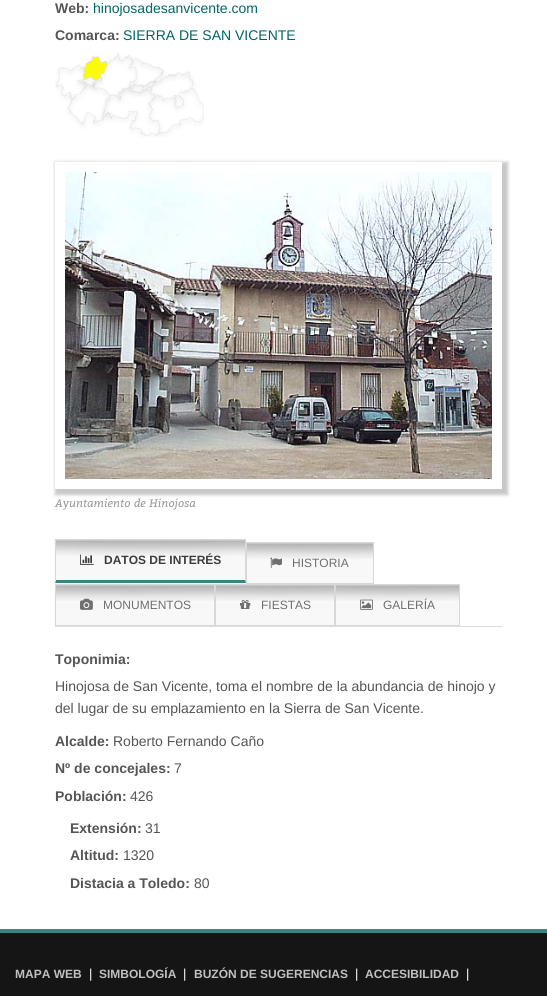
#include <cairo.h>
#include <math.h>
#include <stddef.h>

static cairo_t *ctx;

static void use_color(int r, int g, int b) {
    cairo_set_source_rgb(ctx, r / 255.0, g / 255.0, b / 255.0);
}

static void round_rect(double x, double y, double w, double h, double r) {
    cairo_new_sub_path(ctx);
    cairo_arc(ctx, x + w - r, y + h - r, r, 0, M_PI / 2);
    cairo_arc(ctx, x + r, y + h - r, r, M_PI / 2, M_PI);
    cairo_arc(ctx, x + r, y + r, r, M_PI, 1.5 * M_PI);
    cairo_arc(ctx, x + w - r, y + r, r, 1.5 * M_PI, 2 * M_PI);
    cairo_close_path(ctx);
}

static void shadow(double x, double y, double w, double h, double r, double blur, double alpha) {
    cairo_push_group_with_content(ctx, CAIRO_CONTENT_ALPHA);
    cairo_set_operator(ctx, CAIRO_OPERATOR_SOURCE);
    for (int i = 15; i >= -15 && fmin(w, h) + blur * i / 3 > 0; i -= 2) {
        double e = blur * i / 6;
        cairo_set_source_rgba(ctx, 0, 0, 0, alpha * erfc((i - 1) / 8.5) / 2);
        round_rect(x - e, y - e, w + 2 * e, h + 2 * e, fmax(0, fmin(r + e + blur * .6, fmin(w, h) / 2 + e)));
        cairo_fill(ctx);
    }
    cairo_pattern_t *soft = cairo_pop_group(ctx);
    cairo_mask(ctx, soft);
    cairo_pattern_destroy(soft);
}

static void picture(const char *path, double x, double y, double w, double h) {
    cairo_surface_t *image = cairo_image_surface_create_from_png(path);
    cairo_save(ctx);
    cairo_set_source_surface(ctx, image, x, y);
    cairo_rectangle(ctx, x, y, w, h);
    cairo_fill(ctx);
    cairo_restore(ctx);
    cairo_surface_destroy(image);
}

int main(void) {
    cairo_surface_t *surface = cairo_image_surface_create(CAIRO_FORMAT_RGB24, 547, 996);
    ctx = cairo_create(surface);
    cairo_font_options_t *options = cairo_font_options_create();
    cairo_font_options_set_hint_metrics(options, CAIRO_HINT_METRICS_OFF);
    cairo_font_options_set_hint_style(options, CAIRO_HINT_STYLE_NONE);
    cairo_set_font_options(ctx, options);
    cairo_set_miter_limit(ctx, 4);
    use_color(255, 255, 255);
    cairo_paint(ctx);
    cairo_select_font_face(ctx, "Liberation Sans", CAIRO_FONT_SLANT_NORMAL, CAIRO_FONT_WEIGHT_BOLD);
    cairo_set_font_size(ctx, 14);
    use_color(85, 85, 85);
    cairo_move_to(ctx, 55, 13);
    cairo_show_text(ctx, "Web:");
    cairo_select_font_face(ctx, "Liberation Sans", CAIRO_FONT_SLANT_NORMAL, CAIRO_FONT_WEIGHT_NORMAL);
    use_color(0, 102, 102);
    cairo_move_to(ctx, 93, 13);
    cairo_show_text(ctx, "hinojosadesanvicente.com");
    cairo_select_font_face(ctx, "Liberation Sans", CAIRO_FONT_SLANT_NORMAL, CAIRO_FONT_WEIGHT_BOLD);
    use_color(85, 85, 85);
    cairo_move_to(ctx, 55, 40);
    cairo_show_text(ctx, "Comarca:");
    cairo_select_font_face(ctx, "Liberation Sans", CAIRO_FONT_SLANT_NORMAL, CAIRO_FONT_WEIGHT_NORMAL);
    use_color(0, 102, 102);
    cairo_move_to(ctx, 123, 40);
    cairo_show_text(ctx, "SIERRA DE SAN VICENTE");
    picture("img1.png", 55, 53, 149, 84);
    cairo_save(ctx);
    cairo_set_fill_rule(ctx, CAIRO_FILL_RULE_EVEN_ODD);
    cairo_new_path(ctx);
    cairo_move_to(ctx, 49, 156);
    cairo_line_to(ctx, 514, 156);
    cairo_line_to(ctx, 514, 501);
    cairo_line_to(ctx, 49, 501);
    cairo_close_path(ctx);
    cairo_move_to(ctx, 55, 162);
    cairo_line_to(ctx, 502, 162);
    cairo_line_to(ctx, 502, 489);
    cairo_line_to(ctx, 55, 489);
    cairo_close_path(ctx);
    cairo_clip(ctx);
    use_color(200, 200, 200);
    shadow(55, 162, 453, 333, 0, 1.5, 1);
    cairo_restore(ctx);
    picture("img2.png", 65, 172, 427, 307);
    cairo_select_font_face(ctx, "Bitter", CAIRO_FONT_SLANT_ITALIC, CAIRO_FONT_WEIGHT_NORMAL);
    cairo_set_font_size(ctx, 11);
    use_color(153, 153, 153);
    cairo_move_to(ctx, 55, 507);
    cairo_show_text(ctx, "Ayuntamiento de Hinojosa");
    use_color(0, 0, 0);
    shadow(55, 540, 191, 44, 0, 1, 0.05);
    use_color(248, 248, 248);
    cairo_rectangle(ctx, 56, 541, 189, 39);
    cairo_fill(ctx);
    picture("img3.png", 56, 540, 189, 16);
    cairo_set_source_rgba(ctx, 1, 1, 1, 0.2);
    cairo_rectangle(ctx, 56, 540, 189, 1);
    cairo_fill(ctx);
    use_color(216, 216, 216);
    cairo_rectangle(ctx, 55, 539, 191, 1);
    cairo_fill(ctx);
    cairo_new_path(ctx);
    cairo_move_to(ctx, 246, 539);
    cairo_line_to(ctx, 246, 583);
    cairo_line_to(ctx, 245, 580);
    cairo_line_to(ctx, 245, 540);
    cairo_close_path(ctx);
    cairo_fill(ctx);
    use_color(51, 135, 125);
    cairo_new_path(ctx);
    cairo_move_to(ctx, 246, 583);
    cairo_line_to(ctx, 55, 583);
    cairo_line_to(ctx, 56, 580);
    cairo_line_to(ctx, 245, 580);
    cairo_close_path(ctx);
    cairo_fill(ctx);
    use_color(216, 216, 216);
    cairo_new_path(ctx);
    cairo_move_to(ctx, 55, 583);
    cairo_line_to(ctx, 55, 539);
    cairo_line_to(ctx, 56, 540);
    cairo_line_to(ctx, 56, 580);
    cairo_close_path(ctx);
    cairo_fill(ctx);
    picture("img4.png", 80, 554, 14, 11);
    cairo_select_font_face(ctx, "Liberation Sans", CAIRO_FONT_SLANT_NORMAL, CAIRO_FONT_WEIGHT_BOLD);
    cairo_set_font_size(ctx, 12);
    use_color(60, 60, 60);
    cairo_move_to(ctx, 104, 564);
    cairo_show_text(ctx, "DATOS DE INTERÉS");
    use_color(248, 248, 248);
    cairo_rectangle(ctx, 247, 543, 126, 40);
    cairo_fill(ctx);
    picture("img5.png", 247, 543, 126, 16);
    cairo_set_source_rgba(ctx, 1, 1, 1, 0.2);
    cairo_rectangle(ctx, 247, 543, 126, 1);
    cairo_fill(ctx);
    cairo_rectangle(ctx, 246.5, 542.5, 127, 41);
    use_color(216, 216, 216);
    cairo_set_line_width(ctx, 1);
    cairo_stroke(ctx);
    picture("img6.png", 270, 557, 12, 11);
    cairo_select_font_face(ctx, "Liberation Sans", CAIRO_FONT_SLANT_NORMAL, CAIRO_FONT_WEIGHT_NORMAL);
    use_color(111, 111, 111);
    cairo_move_to(ctx, 292, 567);
    cairo_show_text(ctx, "HISTORIA");
    use_color(248, 248, 248);
    cairo_rectangle(ctx, 56, 585, 158, 40);
    cairo_fill(ctx);
    picture("img7.png", 56, 585, 158, 16);
    cairo_set_source_rgba(ctx, 1, 1, 1, 0.2);
    cairo_rectangle(ctx, 56, 585, 158, 1);
    cairo_fill(ctx);
    cairo_rectangle(ctx, 55.5, 584.5, 159, 41);
    use_color(216, 216, 216);
    cairo_stroke(ctx);
    picture("img8.png", 80, 598, 13, 12);
    use_color(111, 111, 111);
    cairo_move_to(ctx, 103, 609);
    cairo_show_text(ctx, "MONUMENTOS");
    use_color(248, 248, 248);
    cairo_rectangle(ctx, 216, 585, 118, 40);
    cairo_fill(ctx);
    picture("img9.png", 216, 585, 118, 16);
    cairo_set_source_rgba(ctx, 1, 1, 1, 0.2);
    cairo_rectangle(ctx, 216, 585, 118, 1);
    cairo_fill(ctx);
    cairo_rectangle(ctx, 215.5, 584.5, 119, 41);
    use_color(216, 216, 216);
    cairo_stroke(ctx);
    picture("img10.png", 240, 600, 11, 9);
    use_color(111, 111, 111);
    cairo_move_to(ctx, 261, 609);
    cairo_show_text(ctx, "FIESTAS");
    use_color(248, 248, 248);
    cairo_rectangle(ctx, 336, 585, 123, 40);
    cairo_fill(ctx);
    picture("img11.png", 336, 585, 123, 16);
    cairo_set_source_rgba(ctx, 1, 1, 1, 0.2);
    cairo_rectangle(ctx, 336, 585, 123, 1);
    cairo_fill(ctx);
    cairo_rectangle(ctx, 335.5, 584.5, 124, 41);
    use_color(216, 216, 216);
    cairo_stroke(ctx);
    picture("img12.png", 360, 599, 13, 11);
    use_color(111, 111, 111);
    cairo_move_to(ctx, 383, 609);
    cairo_show_text(ctx, "GALERÍA");
    use_color(221, 221, 221);
    cairo_rectangle(ctx, 55, 626, 447, 1);
    cairo_fill(ctx);
    cairo_select_font_face(ctx, "Liberation Sans", CAIRO_FONT_SLANT_NORMAL, CAIRO_FONT_WEIGHT_BOLD);
    cairo_set_font_size(ctx, 14);
    use_color(85, 85, 85);
    cairo_move_to(ctx, 55, 664);
    cairo_show_text(ctx, "Toponimia:");
    cairo_select_font_face(ctx, "Liberation Sans", CAIRO_FONT_SLANT_NORMAL, CAIRO_FONT_WEIGHT_NORMAL);
    cairo_move_to(ctx, 55, 691);
    cairo_show_text(ctx, "Hinojosa de San Vicente, toma el nombre de la abundancia de hinojo y");
    cairo_move_to(ctx, 55, 713);
    cairo_show_text(ctx, "del lugar de su emplazamiento en la Sierra de San Vicente.");
    cairo_select_font_face(ctx, "Liberation Sans", CAIRO_FONT_SLANT_NORMAL, CAIRO_FONT_WEIGHT_BOLD);
    cairo_move_to(ctx, 55, 746);
    cairo_show_text(ctx, "Alcalde:");
    cairo_select_font_face(ctx, "Liberation Sans", CAIRO_FONT_SLANT_NORMAL, CAIRO_FONT_WEIGHT_NORMAL);
    cairo_move_to(ctx, 113, 746);
    cairo_show_text(ctx, "Roberto Fernando Caño");
    cairo_select_font_face(ctx, "Liberation Sans", CAIRO_FONT_SLANT_NORMAL, CAIRO_FONT_WEIGHT_BOLD);
    cairo_move_to(ctx, 55, 773);
    cairo_show_text(ctx, "Nº de concejales:");
    cairo_select_font_face(ctx, "Liberation Sans", CAIRO_FONT_SLANT_NORMAL, CAIRO_FONT_WEIGHT_NORMAL);
    cairo_move_to(ctx, 174, 773);
    cairo_show_text(ctx, "7");
    cairo_select_font_face(ctx, "Liberation Sans", CAIRO_FONT_SLANT_NORMAL, CAIRO_FONT_WEIGHT_BOLD);
    cairo_move_to(ctx, 55, 801);
    cairo_show_text(ctx, "Población:");
    cairo_select_font_face(ctx, "Liberation Sans", CAIRO_FONT_SLANT_NORMAL, CAIRO_FONT_WEIGHT_NORMAL);
    cairo_move_to(ctx, 130, 801);
    cairo_show_text(ctx, "426");
    cairo_select_font_face(ctx, "Liberation Sans", CAIRO_FONT_SLANT_NORMAL, CAIRO_FONT_WEIGHT_BOLD);
    cairo_move_to(ctx, 70, 833);
    cairo_show_text(ctx, "Extensión:");
    cairo_select_font_face(ctx, "Liberation Sans", CAIRO_FONT_SLANT_NORMAL, CAIRO_FONT_WEIGHT_NORMAL);
    cairo_move_to(ctx, 145, 833);
    cairo_show_text(ctx, "31");
    cairo_select_font_face(ctx, "Liberation Sans", CAIRO_FONT_SLANT_NORMAL, CAIRO_FONT_WEIGHT_BOLD);
    cairo_move_to(ctx, 70, 860);
    cairo_show_text(ctx, "Altitud:");
    cairo_select_font_face(ctx, "Liberation Sans", CAIRO_FONT_SLANT_NORMAL, CAIRO_FONT_WEIGHT_NORMAL);
    cairo_move_to(ctx, 123, 860);
    cairo_show_text(ctx, "1320");
    cairo_select_font_face(ctx, "Liberation Sans", CAIRO_FONT_SLANT_NORMAL, CAIRO_FONT_WEIGHT_BOLD);
    cairo_move_to(ctx, 70, 888);
    cairo_show_text(ctx, "Distacia a Toledo:");
    cairo_select_font_face(ctx, "Liberation Sans", CAIRO_FONT_SLANT_NORMAL, CAIRO_FONT_WEIGHT_NORMAL);
    cairo_move_to(ctx, 194, 888);
    cairo_show_text(ctx, "80");
    use_color(21, 21, 21);
    cairo_rectangle(ctx, 0, 933, 547, 63);
    cairo_fill(ctx);
    use_color(51, 135, 125);
    cairo_rectangle(ctx, 0, 929, 547, 4);
    cairo_fill(ctx);
    cairo_select_font_face(ctx, "Liberation Sans", CAIRO_FONT_SLANT_NORMAL, CAIRO_FONT_WEIGHT_BOLD);
    cairo_set_font_size(ctx, 12);
    use_color(192, 192, 192);
    cairo_move_to(ctx, 15, 978);
    cairo_show_text(ctx, "MAPA WEB");
    cairo_select_font_face(ctx, "Liberation Sans", CAIRO_FONT_SLANT_NORMAL, CAIRO_FONT_WEIGHT_NORMAL);
    cairo_set_font_size(ctx, 13);
    use_color(255, 255, 255);
    cairo_move_to(ctx, 89, 978);
    cairo_show_text(ctx, "|");
    cairo_select_font_face(ctx, "Liberation Sans", CAIRO_FONT_SLANT_NORMAL, CAIRO_FONT_WEIGHT_BOLD);
    cairo_set_font_size(ctx, 12);
    use_color(192, 192, 192);
    cairo_move_to(ctx, 99, 978);
    cairo_show_text(ctx, "SIMBOLOGÍA");
    cairo_select_font_face(ctx, "Liberation Sans", CAIRO_FONT_SLANT_NORMAL, CAIRO_FONT_WEIGHT_NORMAL);
    cairo_set_font_size(ctx, 13);
    use_color(255, 255, 255);
    cairo_move_to(ctx, 183, 978);
    cairo_show_text(ctx, "|");
    cairo_select_font_face(ctx, "Liberation Sans", CAIRO_FONT_SLANT_NORMAL, CAIRO_FONT_WEIGHT_BOLD);
    cairo_set_font_size(ctx, 12);
    use_color(192, 192, 192);
    cairo_move_to(ctx, 194, 978);
    cairo_show_text(ctx, "BUZÓN DE SUGERENCIAS");
    cairo_select_font_face(ctx, "Liberation Sans", CAIRO_FONT_SLANT_NORMAL, CAIRO_FONT_WEIGHT_NORMAL);
    cairo_set_font_size(ctx, 13);
    use_color(255, 255, 255);
    cairo_move_to(ctx, 355, 978);
    cairo_show_text(ctx, "|");
    cairo_select_font_face(ctx, "Liberation Sans", CAIRO_FONT_SLANT_NORMAL, CAIRO_FONT_WEIGHT_BOLD);
    cairo_set_font_size(ctx, 12);
    use_color(192, 192, 192);
    cairo_move_to(ctx, 365, 978);
    cairo_show_text(ctx, "ACCESIBILIDAD");
    cairo_select_font_face(ctx, "Liberation Sans", CAIRO_FONT_SLANT_NORMAL, CAIRO_FONT_WEIGHT_NORMAL);
    cairo_set_font_size(ctx, 13);
    use_color(255, 255, 255);
    cairo_move_to(ctx, 466, 978);
    cairo_show_text(ctx, "|");
    cairo_surface_write_to_png(surface, "result.png");
    cairo_font_options_destroy(options);
    cairo_destroy(ctx);
    cairo_surface_destroy(surface);
    return 0;
}
